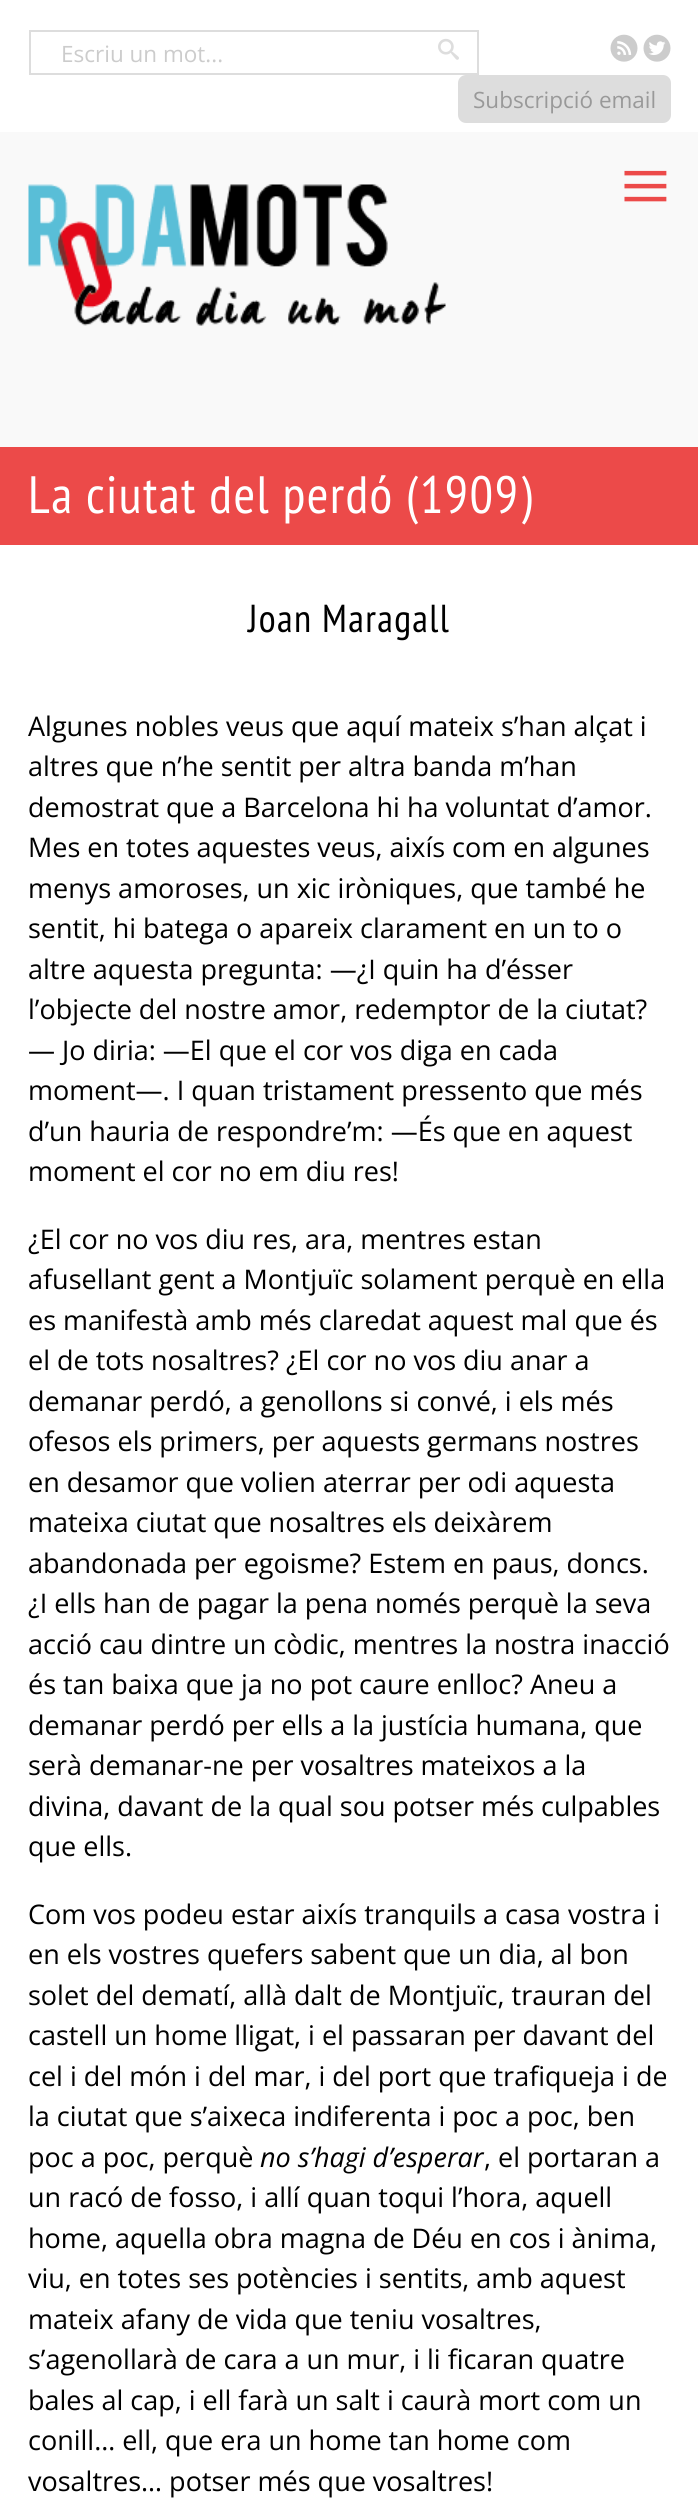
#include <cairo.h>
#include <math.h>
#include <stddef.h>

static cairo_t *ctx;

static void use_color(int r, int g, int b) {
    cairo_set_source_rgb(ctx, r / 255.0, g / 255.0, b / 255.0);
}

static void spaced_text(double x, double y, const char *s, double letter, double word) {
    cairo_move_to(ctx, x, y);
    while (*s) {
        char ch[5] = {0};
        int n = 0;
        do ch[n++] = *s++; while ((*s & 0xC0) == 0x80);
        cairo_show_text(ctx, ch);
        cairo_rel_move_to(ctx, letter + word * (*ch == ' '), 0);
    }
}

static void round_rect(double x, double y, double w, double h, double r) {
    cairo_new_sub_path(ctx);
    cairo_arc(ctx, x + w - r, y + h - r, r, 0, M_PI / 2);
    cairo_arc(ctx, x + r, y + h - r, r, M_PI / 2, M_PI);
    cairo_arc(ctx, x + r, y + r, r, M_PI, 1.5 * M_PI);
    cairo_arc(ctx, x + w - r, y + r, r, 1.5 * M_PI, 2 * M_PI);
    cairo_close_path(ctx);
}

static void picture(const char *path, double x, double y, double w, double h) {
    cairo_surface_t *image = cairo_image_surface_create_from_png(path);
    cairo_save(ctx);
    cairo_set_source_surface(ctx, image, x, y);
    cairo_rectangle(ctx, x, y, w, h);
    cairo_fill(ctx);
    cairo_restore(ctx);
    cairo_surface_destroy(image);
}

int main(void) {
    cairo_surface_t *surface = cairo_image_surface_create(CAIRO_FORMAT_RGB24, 698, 2503);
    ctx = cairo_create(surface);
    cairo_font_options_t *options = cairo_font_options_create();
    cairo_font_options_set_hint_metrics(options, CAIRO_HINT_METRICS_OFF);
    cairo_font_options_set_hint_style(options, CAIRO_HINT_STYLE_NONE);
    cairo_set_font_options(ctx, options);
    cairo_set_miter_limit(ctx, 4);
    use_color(249, 249, 249);
    cairo_paint(ctx);
    use_color(255, 255, 255);
    cairo_rectangle(ctx, 0, 0, 698, 132);
    cairo_fill(ctx);
    cairo_rectangle(ctx, 30, 31, 448, 43);
    use_color(221, 221, 221);
    cairo_stroke(ctx);
    cairo_select_font_face(ctx, "Open Sans", CAIRO_FONT_SLANT_NORMAL, CAIRO_FONT_WEIGHT_NORMAL);
    cairo_set_font_size(ctx, 22.5);
    use_color(204, 204, 204);
    cairo_move_to(ctx, 61, 62);
    cairo_show_text(ctx, "Escriu un mot...");
    picture("img1.png", 438, 38, 21, 22);
    picture("img2.png", 610, 34, 28, 28);
    picture("img3.png", 643, 34, 28, 28);
    use_color(221, 221, 221);
    round_rect(458, 75, 213, 48, 8);
    cairo_fill(ctx);
    use_color(153, 153, 153);
    cairo_move_to(ctx, 473, 108);
    cairo_show_text(ctx, "Subscripció email");
    picture("img4.png", 28, 184, 418, 142);
    cairo_select_font_face(ctx, "Liberation Serif", CAIRO_FONT_SLANT_NORMAL, CAIRO_FONT_WEIGHT_NORMAL);
    cairo_set_font_size(ctx, 90);
    use_color(236, 74, 73);
    cairo_move_to(ctx, 620, 216);
    cairo_show_text(ctx, "≡");
    use_color(255, 255, 255);
    cairo_rectangle(ctx, 0, 545, 698, 1958);
    cairo_fill(ctx);
    use_color(236, 74, 73);
    cairo_rectangle(ctx, 0, 447, 698, 98);
    cairo_fill(ctx);
    cairo_select_font_face(ctx, "PT Sans Narrow", CAIRO_FONT_SLANT_NORMAL, CAIRO_FONT_WEIGHT_NORMAL);
    cairo_set_font_size(ctx, 52.5);
    use_color(255, 255, 255);
    spaced_text(28, 513, "La ciutat del perdó (1909)", 1.35, 0);
    cairo_set_font_size(ctx, 39);
    use_color(0, 0, 0);
    spaced_text(248, 632, "Joan Maragall", 1.35, 0);
    cairo_select_font_face(ctx, "Open Sans", CAIRO_FONT_SLANT_NORMAL, CAIRO_FONT_WEIGHT_NORMAL);
    cairo_set_font_size(ctx, 27);
    cairo_move_to(ctx, 28, 736);
    cairo_show_text(ctx, "Algunes nobles veus que aquí mateix s’han alçat i");
    cairo_move_to(ctx, 28, 776);
    cairo_show_text(ctx, "altres que n’he sentit per altra banda m’han");
    cairo_move_to(ctx, 28, 817);
    cairo_show_text(ctx, "demostrat que a Barcelona hi ha voluntat d’amor.");
    cairo_move_to(ctx, 28, 857);
    cairo_show_text(ctx, "Mes en totes aquestes veus, aixís com en algunes");
    cairo_move_to(ctx, 28, 898);
    cairo_show_text(ctx, "menys amoroses, un xic iròniques, que també he");
    cairo_move_to(ctx, 28, 938);
    cairo_show_text(ctx, "sentit, hi batega o apareix clarament en un to o");
    cairo_move_to(ctx, 28, 979);
    cairo_show_text(ctx, "altre aquesta pregunta: —¿I quin ha d’ésser");
    cairo_move_to(ctx, 28, 1019);
    cairo_show_text(ctx, "l’objecte del nostre amor, redemptor de la ciutat?");
    cairo_move_to(ctx, 28, 1060);
    cairo_show_text(ctx, "— Jo diria: —El que el cor vos diga en cada");
    cairo_move_to(ctx, 28, 1100);
    cairo_show_text(ctx, "moment—. I quan tristament pressento que més");
    cairo_move_to(ctx, 28, 1141);
    cairo_show_text(ctx, "d’un hauria de respondre’m: —És que en aquest");
    cairo_move_to(ctx, 28, 1181);
    cairo_show_text(ctx, "moment el cor no em diu res!");
    cairo_move_to(ctx, 28, 1249);
    cairo_show_text(ctx, "¿El cor no vos diu res, ara, mentres estan");
    cairo_move_to(ctx, 28, 1289);
    cairo_show_text(ctx, "afusellant gent a Montjuïc solament perquè en ella");
    cairo_move_to(ctx, 28, 1330);
    cairo_show_text(ctx, "es manifestà amb més claredat aquest mal que és");
    cairo_move_to(ctx, 28, 1370);
    cairo_show_text(ctx, "el de tots nosaltres? ¿El cor no vos diu anar a");
    cairo_move_to(ctx, 28, 1411);
    cairo_show_text(ctx, "demanar perdó, a genollons si convé, i els més");
    cairo_move_to(ctx, 28, 1451);
    cairo_show_text(ctx, "ofesos els primers, per aquests germans nostres");
    cairo_move_to(ctx, 28, 1492);
    cairo_show_text(ctx, "en desamor que volien aterrar per odi aquesta");
    cairo_move_to(ctx, 28, 1532);
    cairo_show_text(ctx, "mateixa ciutat que nosaltres els deixàrem");
    cairo_move_to(ctx, 28, 1573);
    cairo_show_text(ctx, "abandonada per egoisme? Estem en paus, doncs.");
    cairo_move_to(ctx, 28, 1613);
    cairo_show_text(ctx, "¿I ells han de pagar la pena només perquè la seva");
    cairo_move_to(ctx, 28, 1654);
    cairo_show_text(ctx, "acció cau dintre un còdic, mentres la nostra inacció");
    cairo_move_to(ctx, 28, 1694);
    cairo_show_text(ctx, "és tan baixa que ja no pot caure enlloc? Aneu a");
    cairo_move_to(ctx, 28, 1735);
    cairo_show_text(ctx, "demanar perdó per ells a la justícia humana, que");
    cairo_move_to(ctx, 28, 1775);
    cairo_show_text(ctx, "serà demanar-ne per vosaltres mateixos a la");
    cairo_move_to(ctx, 28, 1816);
    cairo_show_text(ctx, "divina, davant de la qual sou potser més culpables");
    cairo_move_to(ctx, 28, 1856);
    cairo_show_text(ctx, "que ells.");
    cairo_move_to(ctx, 28, 1924);
    cairo_show_text(ctx, "Com vos podeu estar aixís tranquils a casa vostra i");
    cairo_move_to(ctx, 28, 1964);
    cairo_show_text(ctx, "en els vostres quefers sabent que un dia, al bon");
    cairo_move_to(ctx, 28, 2005);
    cairo_show_text(ctx, "solet del dematí, allà dalt de Montjuïc, trauran del");
    cairo_move_to(ctx, 28, 2045);
    cairo_show_text(ctx, "castell un home lligat, i el passaran per davant del");
    cairo_move_to(ctx, 28, 2086);
    cairo_show_text(ctx, "cel i del món i del mar, i del port que trafiqueja i de");
    cairo_move_to(ctx, 28, 2126);
    cairo_show_text(ctx, "la ciutat que s’aixeca indiferenta i poc a poc, ben");
    cairo_move_to(ctx, 28, 2167);
    cairo_show_text(ctx, "poc a poc, perquè");
    cairo_select_font_face(ctx, "Open Sans", CAIRO_FONT_SLANT_ITALIC, CAIRO_FONT_WEIGHT_NORMAL);
    cairo_move_to(ctx, 260, 2167);
    cairo_show_text(ctx, "no s’hagi d’esperar");
    cairo_select_font_face(ctx, "Open Sans", CAIRO_FONT_SLANT_NORMAL, CAIRO_FONT_WEIGHT_NORMAL);
    cairo_move_to(ctx, 484, 2167);
    cairo_show_text(ctx, ", el portaran a");
    cairo_move_to(ctx, 28, 2207);
    cairo_show_text(ctx, "un racó de fosso, i allí quan toqui l’hora, aquell");
    cairo_move_to(ctx, 28, 2248);
    cairo_show_text(ctx, "home, aquella obra magna de Déu en cos i ànima,");
    cairo_move_to(ctx, 28, 2288);
    cairo_show_text(ctx, "viu, en totes ses potències i sentits, amb aquest");
    cairo_move_to(ctx, 28, 2329);
    cairo_show_text(ctx, "mateix afany de vida que teniu vosaltres,");
    cairo_move_to(ctx, 28, 2369);
    cairo_show_text(ctx, "s’agenollarà de cara a un mur, i li ficaran quatre");
    cairo_move_to(ctx, 28, 2410);
    cairo_show_text(ctx, "bales al cap, i ell farà un salt i caurà mort com un");
    cairo_move_to(ctx, 28, 2450);
    cairo_show_text(ctx, "conill… ell, que era un home tan home com");
    cairo_move_to(ctx, 28, 2491);
    cairo_show_text(ctx, "vosaltres… potser més que vosaltres!");
    cairo_surface_write_to_png(surface, "result.png");
    cairo_font_options_destroy(options);
    cairo_destroy(ctx);
    cairo_surface_destroy(surface);
    return 0;
}
